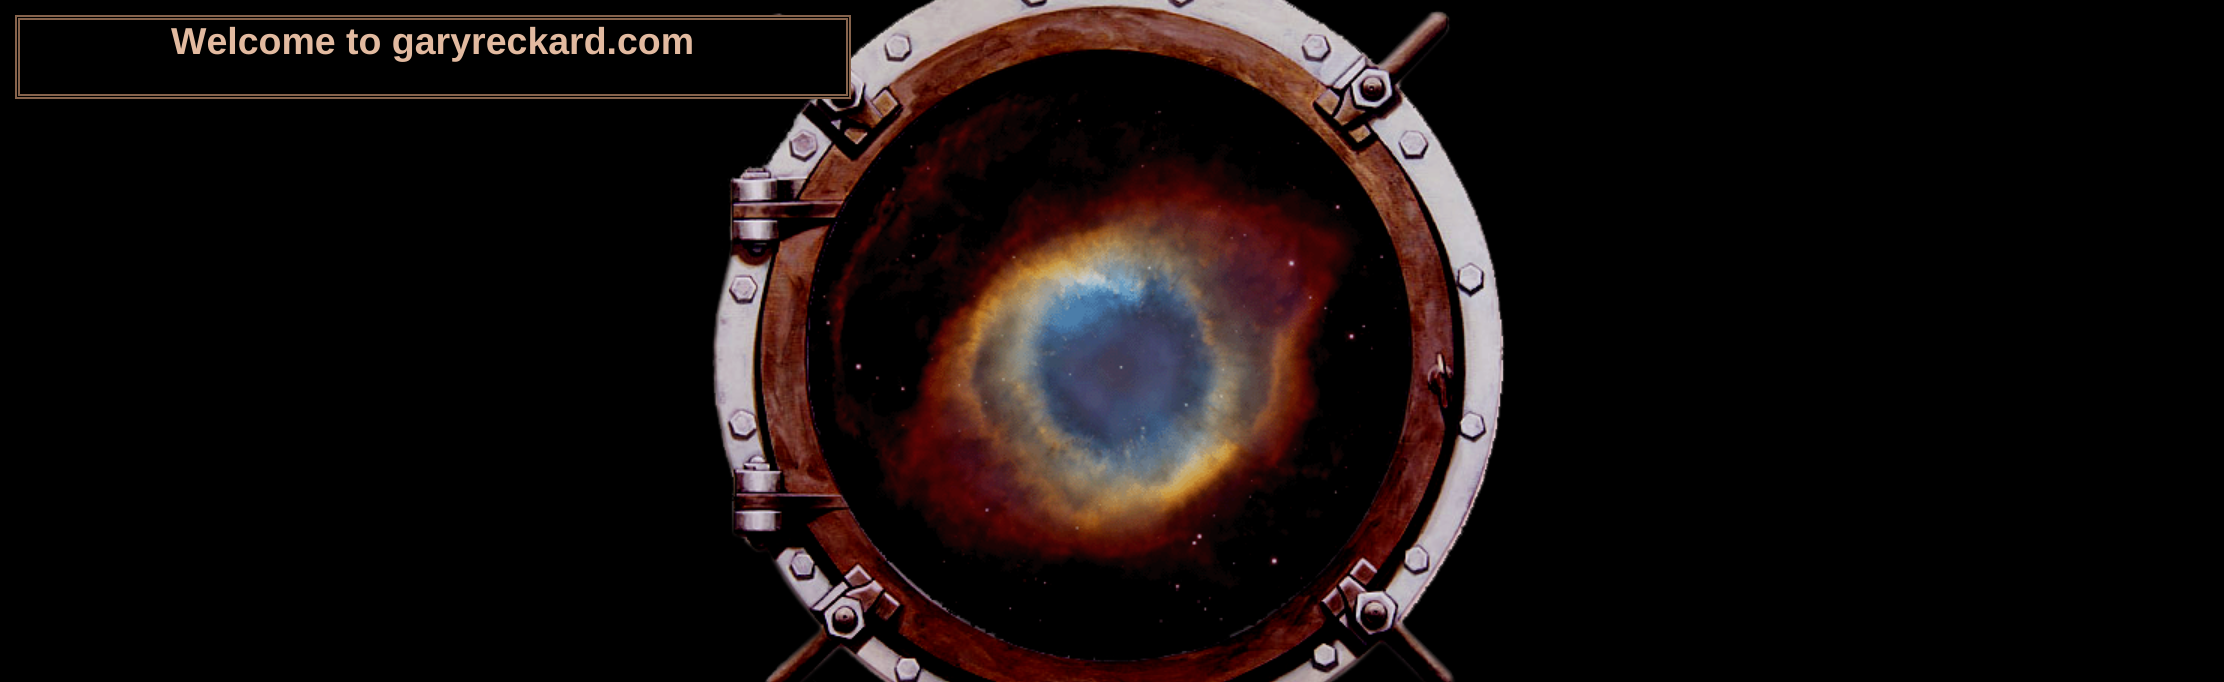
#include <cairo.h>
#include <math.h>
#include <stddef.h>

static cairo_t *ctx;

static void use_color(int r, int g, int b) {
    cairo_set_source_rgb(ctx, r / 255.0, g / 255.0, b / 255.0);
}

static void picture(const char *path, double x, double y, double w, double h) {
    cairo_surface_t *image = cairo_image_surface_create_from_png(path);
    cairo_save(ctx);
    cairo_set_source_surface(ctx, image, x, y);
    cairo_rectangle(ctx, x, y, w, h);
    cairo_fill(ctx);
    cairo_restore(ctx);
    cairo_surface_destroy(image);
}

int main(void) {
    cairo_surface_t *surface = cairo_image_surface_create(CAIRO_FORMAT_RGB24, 2224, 682);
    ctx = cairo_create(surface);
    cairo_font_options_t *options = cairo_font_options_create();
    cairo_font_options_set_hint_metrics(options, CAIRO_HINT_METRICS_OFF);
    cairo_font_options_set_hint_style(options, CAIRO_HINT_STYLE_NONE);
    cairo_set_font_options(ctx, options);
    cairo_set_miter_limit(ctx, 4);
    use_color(0, 0, 0);
    cairo_paint(ctx);
    picture("img2.png", 802, 45, 617, 624);
    picture("img1.png", 712, 0, 793, 682);
    use_color(0, 0, 0);
    cairo_rectangle(ctx, 762, 17, 87, 80);
    cairo_fill(ctx);
    cairo_rectangle(ctx, 16, 16, 834, 82);
    use_color(134, 99, 76);
    cairo_stroke(ctx);
    cairo_rectangle(ctx, 19, 19, 828, 76);
    cairo_stroke(ctx);
    cairo_select_font_face(ctx, "Liberation Sans", CAIRO_FONT_SLANT_NORMAL, CAIRO_FONT_WEIGHT_BOLD);
    cairo_set_font_size(ctx, 37.5);
    use_color(226, 186, 160);
    cairo_move_to(ctx, 171, 54);
    cairo_show_text(ctx, "Welcome to garyreckard.com");
    cairo_surface_write_to_png(surface, "result.png");
    cairo_font_options_destroy(options);
    cairo_destroy(ctx);
    cairo_surface_destroy(surface);
    return 0;
}
